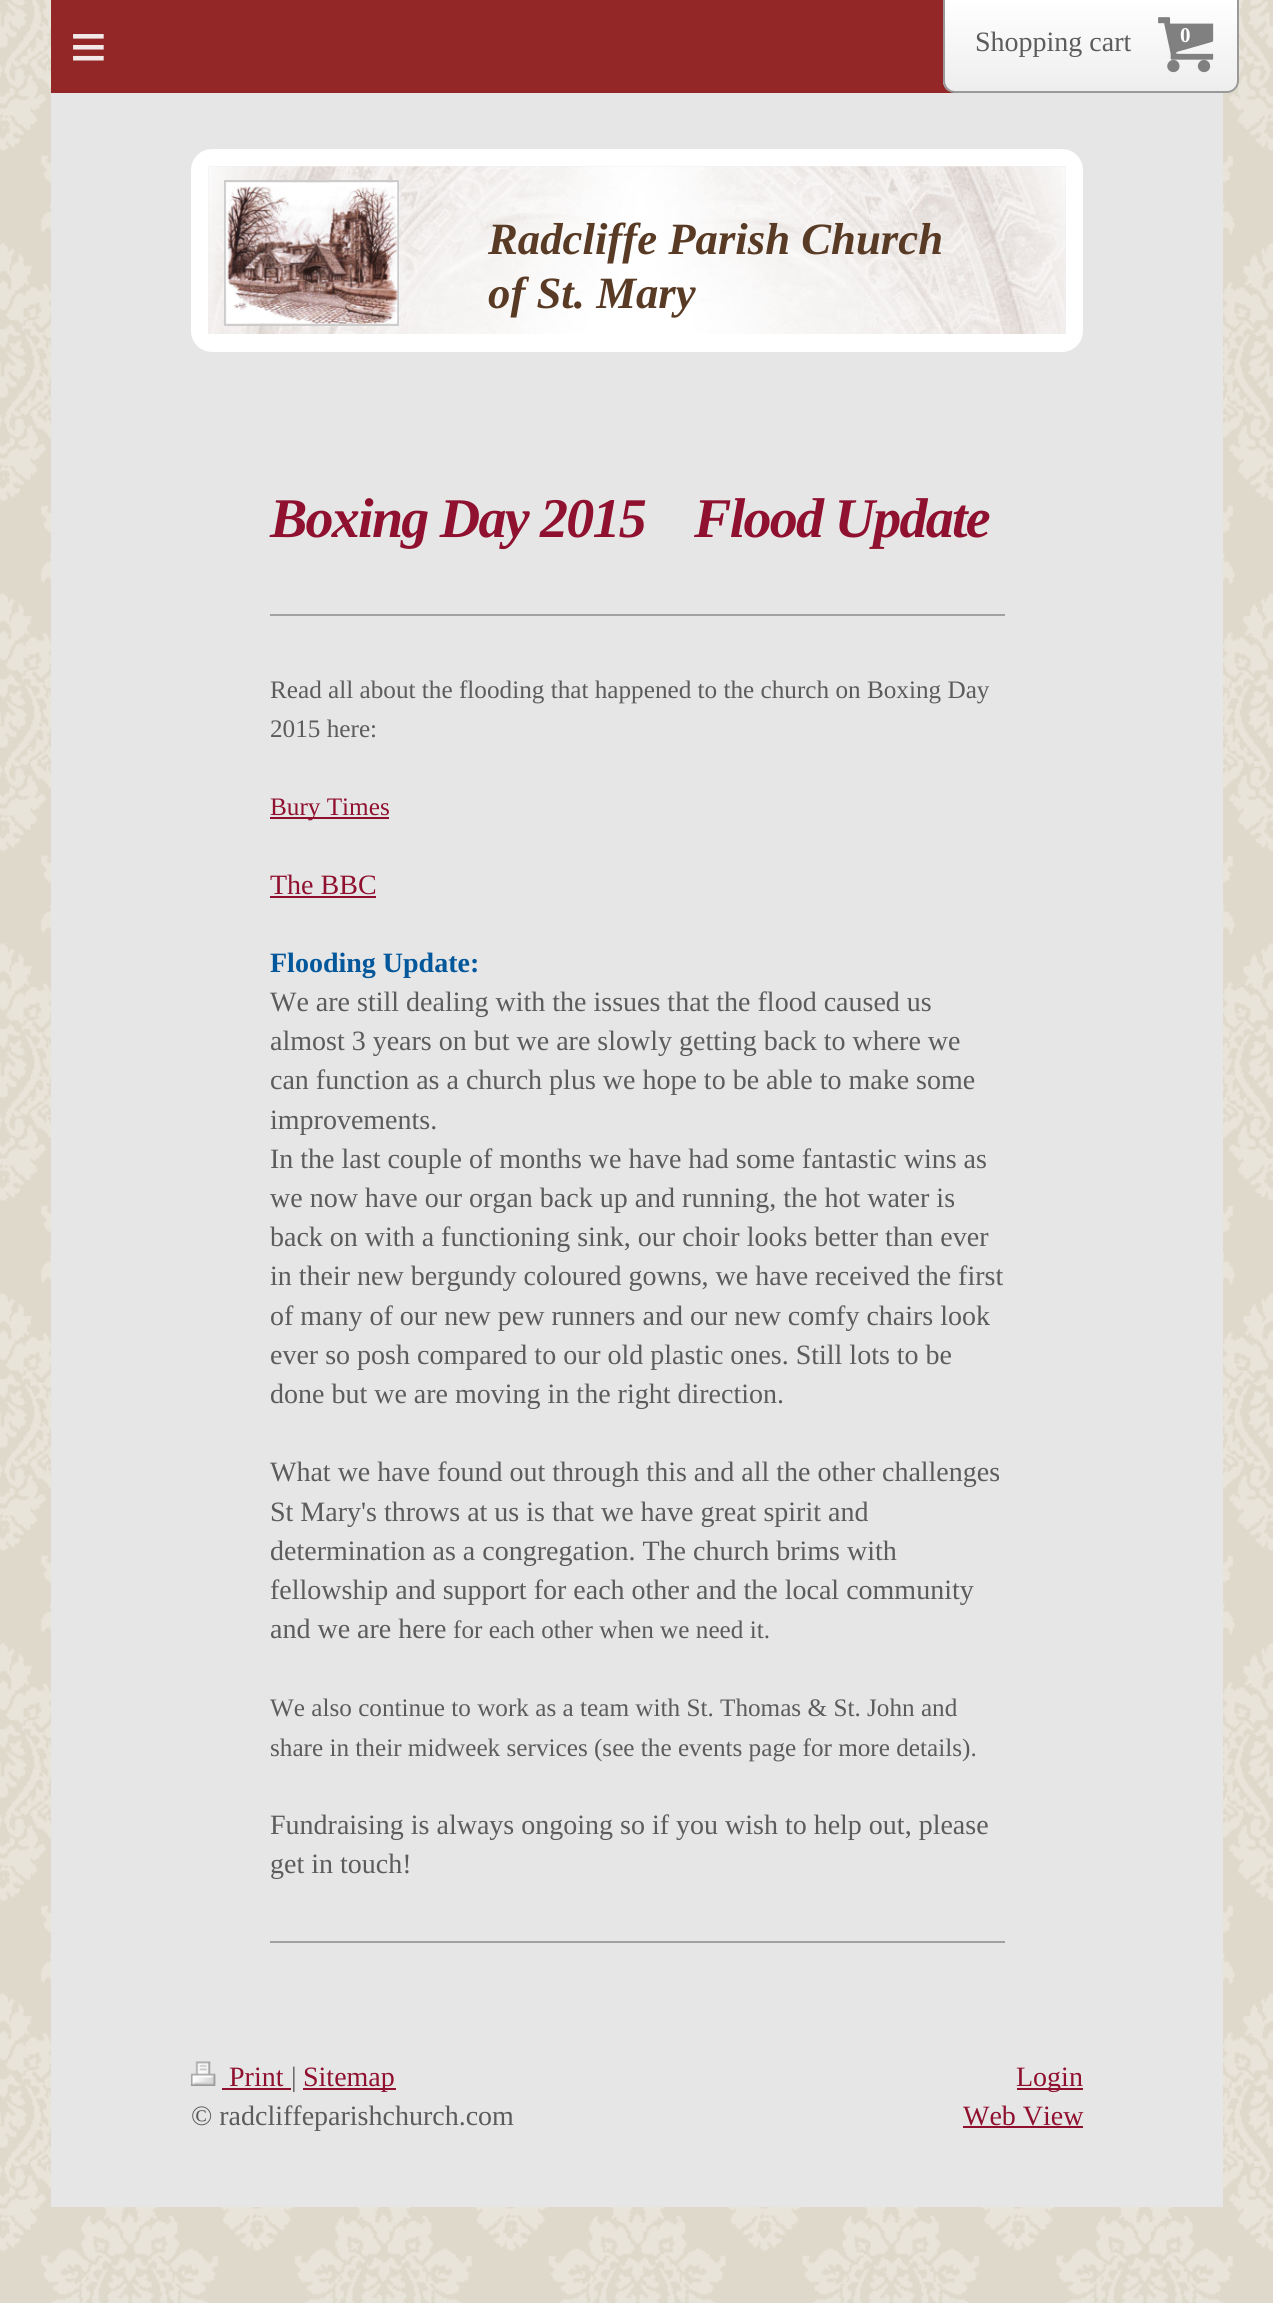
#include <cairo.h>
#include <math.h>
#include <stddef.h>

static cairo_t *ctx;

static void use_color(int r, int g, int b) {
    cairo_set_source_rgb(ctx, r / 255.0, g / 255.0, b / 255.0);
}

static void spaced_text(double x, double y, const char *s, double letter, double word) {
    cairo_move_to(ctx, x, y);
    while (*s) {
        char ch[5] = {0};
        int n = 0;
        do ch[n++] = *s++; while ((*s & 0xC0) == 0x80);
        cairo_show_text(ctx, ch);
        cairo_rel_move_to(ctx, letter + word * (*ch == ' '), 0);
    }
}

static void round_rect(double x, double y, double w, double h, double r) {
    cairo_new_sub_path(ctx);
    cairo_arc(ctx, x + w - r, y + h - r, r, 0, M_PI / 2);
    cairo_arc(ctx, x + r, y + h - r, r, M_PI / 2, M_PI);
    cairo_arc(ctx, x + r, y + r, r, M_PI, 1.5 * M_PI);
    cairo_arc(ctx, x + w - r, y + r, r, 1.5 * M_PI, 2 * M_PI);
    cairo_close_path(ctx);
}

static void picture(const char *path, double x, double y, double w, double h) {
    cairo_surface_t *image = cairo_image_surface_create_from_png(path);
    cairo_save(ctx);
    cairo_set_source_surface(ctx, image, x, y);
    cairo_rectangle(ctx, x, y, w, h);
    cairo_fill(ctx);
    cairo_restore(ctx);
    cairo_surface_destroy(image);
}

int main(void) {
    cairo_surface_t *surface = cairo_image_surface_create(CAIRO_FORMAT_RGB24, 1273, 2303);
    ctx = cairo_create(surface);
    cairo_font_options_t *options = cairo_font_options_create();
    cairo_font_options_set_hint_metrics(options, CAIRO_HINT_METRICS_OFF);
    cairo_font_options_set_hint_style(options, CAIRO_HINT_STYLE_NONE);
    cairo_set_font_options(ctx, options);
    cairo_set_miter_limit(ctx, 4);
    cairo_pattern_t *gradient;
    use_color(255, 255, 255);
    cairo_paint(ctx);
    picture("img1.png", 0, 0, 1273, 2303);
    use_color(147, 38, 38);
    cairo_rectangle(ctx, 51, 0, 904, 93);
    cairo_fill(ctx);
    cairo_save(ctx);
    cairo_new_path(ctx);
    cairo_move_to(ctx, 943, -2);
    cairo_line_to(ctx, 1239, -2);
    cairo_line_to(ctx, 1239, 81);
    cairo_curve_to(ctx, 1239, 87.5, 1233.5, 93, 1227, 93);
    cairo_line_to(ctx, 955, 93);
    cairo_curve_to(ctx, 948.5, 93, 943, 87.5, 943, 81);
    cairo_close_path(ctx);
    cairo_clip(ctx);
    gradient = cairo_pattern_create_linear(1091, 0, 1091, 91);
    cairo_pattern_add_color_stop_rgba(gradient, 0, 1, 1, 1, 1);
    cairo_pattern_add_color_stop_rgba(gradient, 1, 0.933, 0.933, 0.933, 1);
    cairo_set_source(ctx, gradient);
    cairo_pattern_destroy(gradient);
    cairo_rectangle(ctx, 943, 0, 296, 91);
    cairo_fill(ctx);
    cairo_restore(ctx);
    cairo_new_path(ctx);
    cairo_move_to(ctx, 944, -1);
    cairo_line_to(ctx, 1238, -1);
    cairo_line_to(ctx, 1238, 81);
    cairo_curve_to(ctx, 1238, 87, 1233, 92, 1227, 92);
    cairo_line_to(ctx, 955, 92);
    cairo_curve_to(ctx, 949, 92, 944, 87, 944, 81);
    cairo_close_path(ctx);
    use_color(153, 153, 153);
    cairo_stroke(ctx);
    cairo_select_font_face(ctx, "Liberation Serif", CAIRO_FONT_SLANT_NORMAL, CAIRO_FONT_WEIGHT_NORMAL);
    cairo_set_font_size(ctx, 28);
    use_color(92, 92, 92);
    cairo_move_to(ctx, 975, 51);
    cairo_show_text(ctx, "Shopping cart");
    picture("img2.png", 1158, 17, 56, 56);
    cairo_select_font_face(ctx, "Liberation Serif", CAIRO_FONT_SLANT_NORMAL, CAIRO_FONT_WEIGHT_BOLD);
    cairo_set_font_size(ctx, 21);
    use_color(255, 255, 255);
    cairo_move_to(ctx, 1180, 42);
    cairo_show_text(ctx, "0");
    cairo_select_font_face(ctx, "Liberation Sans", CAIRO_FONT_SLANT_NORMAL, CAIRO_FONT_WEIGHT_NORMAL);
    cairo_set_font_size(ctx, 63);
    use_color(244, 233, 233);
    spaced_text(70, 68, "≡", 18, 0);
    use_color(230, 230, 230);
    cairo_rectangle(ctx, 51, 93, 1172, 2114);
    cairo_fill(ctx);
    round_rect(200, 158, 874, 185, 12);
    use_color(255, 255, 255);
    cairo_set_line_width(ctx, 18);
    cairo_stroke(ctx);
    use_color(238, 238, 238);
    cairo_rectangle(ctx, 208, 166, 858, 168);
    cairo_fill(ctx);
    picture("img3.png", 208, 166, 858, 168);
    cairo_rectangle(ctx, 225, 181, 173, 144);
    use_color(204, 204, 204);
    cairo_set_line_width(ctx, 2);
    cairo_stroke(ctx);
    picture("img4.png", 225, 182, 173, 142);
    cairo_select_font_face(ctx, "Liberation Serif", CAIRO_FONT_SLANT_ITALIC, CAIRO_FONT_WEIGHT_BOLD);
    cairo_set_font_size(ctx, 44.75);
    use_color(89, 59, 37);
    cairo_move_to(ctx, 488, 254);
    cairo_show_text(ctx, "Radcliffe Parish Church");
    cairo_move_to(ctx, 488, 308);
    cairo_show_text(ctx, "of St. Mary");
    cairo_set_font_size(ctx, 56);
    use_color(143, 17, 47);
    spaced_text(270, 537, "Boxing Day 2015    Flood Update", -1.75, 0);
    use_color(161, 161, 161);
    cairo_rectangle(ctx, 270, 614, 735, 2);
    cairo_fill(ctx);
    cairo_select_font_face(ctx, "Liberation Serif", CAIRO_FONT_SLANT_NORMAL, CAIRO_FONT_WEIGHT_NORMAL);
    cairo_set_font_size(ctx, 25.2);
    use_color(92, 92, 92);
    cairo_move_to(ctx, 270, 698);
    cairo_show_text(ctx, "Read all about the flooding that happened to the church on Boxing Day");
    cairo_move_to(ctx, 270, 737);
    cairo_show_text(ctx, "2015 here:");
    use_color(143, 17, 47);
    cairo_rectangle(ctx, 270, 817, 119, 2);
    cairo_fill(ctx);
    cairo_move_to(ctx, 270, 815);
    cairo_show_text(ctx, "Bury Times");
    cairo_set_font_size(ctx, 28);
    cairo_move_to(ctx, 270, 894);
    cairo_show_text(ctx, "The BBC");
    cairo_rectangle(ctx, 270, 896, 106, 2);
    cairo_fill(ctx);
    cairo_select_font_face(ctx, "Liberation Serif", CAIRO_FONT_SLANT_NORMAL, CAIRO_FONT_WEIGHT_BOLD);
    use_color(3, 87, 155);
    cairo_move_to(ctx, 270, 972);
    cairo_show_text(ctx, "Flooding Update:");
    cairo_select_font_face(ctx, "Liberation Serif", CAIRO_FONT_SLANT_NORMAL, CAIRO_FONT_WEIGHT_NORMAL);
    use_color(92, 92, 92);
    cairo_move_to(ctx, 270, 1011);
    cairo_show_text(ctx, "We are still dealing with the issues that the flood caused us");
    cairo_move_to(ctx, 270, 1050);
    cairo_show_text(ctx, "almost 3 years on but we are slowly getting back to where we");
    cairo_move_to(ctx, 270, 1089);
    cairo_show_text(ctx, "can function as a church plus we hope to be able to make some");
    cairo_move_to(ctx, 270, 1129);
    cairo_show_text(ctx, "improvements.");
    cairo_move_to(ctx, 270, 1168);
    cairo_show_text(ctx, "In the last couple of months we have had some fantastic wins as");
    cairo_move_to(ctx, 270, 1207);
    cairo_show_text(ctx, "we now have our organ back up and running, the hot water is");
    cairo_move_to(ctx, 270, 1246);
    cairo_show_text(ctx, "back on with a functioning sink, our choir looks better than ever");
    cairo_move_to(ctx, 270, 1285);
    cairo_show_text(ctx, "in their new bergundy coloured gowns, we have received the first");
    cairo_move_to(ctx, 270, 1325);
    cairo_show_text(ctx, "of many of our new pew runners and our new comfy chairs look");
    cairo_move_to(ctx, 270, 1364);
    cairo_show_text(ctx, "ever so posh compared to our old plastic ones. Still lots to be");
    cairo_move_to(ctx, 270, 1403);
    cairo_show_text(ctx, "done but we are moving in the right direction.");
    cairo_move_to(ctx, 270, 1481);
    cairo_show_text(ctx, "What we have found out through this and all the other challenges");
    cairo_move_to(ctx, 270, 1521);
    cairo_show_text(ctx, "St Mary's throws at us is that we have great spirit and");
    cairo_move_to(ctx, 270, 1560);
    cairo_show_text(ctx, "determination as a congregation. The church brims with");
    cairo_move_to(ctx, 270, 1599);
    cairo_show_text(ctx, "fellowship and support for each other and the local community");
    cairo_move_to(ctx, 270, 1638);
    cairo_show_text(ctx, "and we are here");
    cairo_set_font_size(ctx, 25.2);
    cairo_move_to(ctx, 453, 1638);
    cairo_show_text(ctx, "for each other when we need it.");
    cairo_move_to(ctx, 270, 1716);
    cairo_show_text(ctx, "We also continue to work as a team with St. Thomas & St. John and");
    cairo_move_to(ctx, 270, 1756);
    cairo_show_text(ctx, "share in their midweek services (see the events page for more details).");
    cairo_set_font_size(ctx, 28);
    cairo_move_to(ctx, 270, 1834);
    cairo_show_text(ctx, "Fundraising is always ongoing so if you wish to help out, please");
    cairo_move_to(ctx, 270, 1873);
    cairo_show_text(ctx, "get in touch!");
    use_color(161, 161, 161);
    cairo_rectangle(ctx, 270, 1941, 735, 2);
    cairo_fill(ctx);
    picture("img5.png", 190, 2061, 26, 25);
    use_color(143, 17, 47);
    cairo_move_to(ctx, 229, 2086);
    cairo_show_text(ctx, "Print");
    cairo_rectangle(ctx, 222, 2088, 69, 2);
    cairo_fill(ctx);
    use_color(92, 92, 92);
    cairo_move_to(ctx, 291, 2086);
    cairo_show_text(ctx, "|");
    use_color(143, 17, 47);
    cairo_rectangle(ctx, 303, 2088, 93, 2);
    cairo_fill(ctx);
    cairo_move_to(ctx, 303, 2086);
    cairo_show_text(ctx, "Sitemap");
    use_color(92, 92, 92);
    cairo_move_to(ctx, 191, 2125);
    cairo_show_text(ctx, "© radcliffeparishchurch.com");
    use_color(143, 17, 47);
    cairo_rectangle(ctx, 1017, 2088, 66, 2);
    cairo_fill(ctx);
    cairo_move_to(ctx, 1016, 2086);
    cairo_show_text(ctx, "Login");
    cairo_move_to(ctx, 963, 2125);
    cairo_show_text(ctx, "Web View");
    cairo_rectangle(ctx, 963, 2126, 120, 2);
    cairo_fill(ctx);
    cairo_surface_write_to_png(surface, "result.png");
    cairo_font_options_destroy(options);
    cairo_destroy(ctx);
    cairo_surface_destroy(surface);
    return 0;
}
